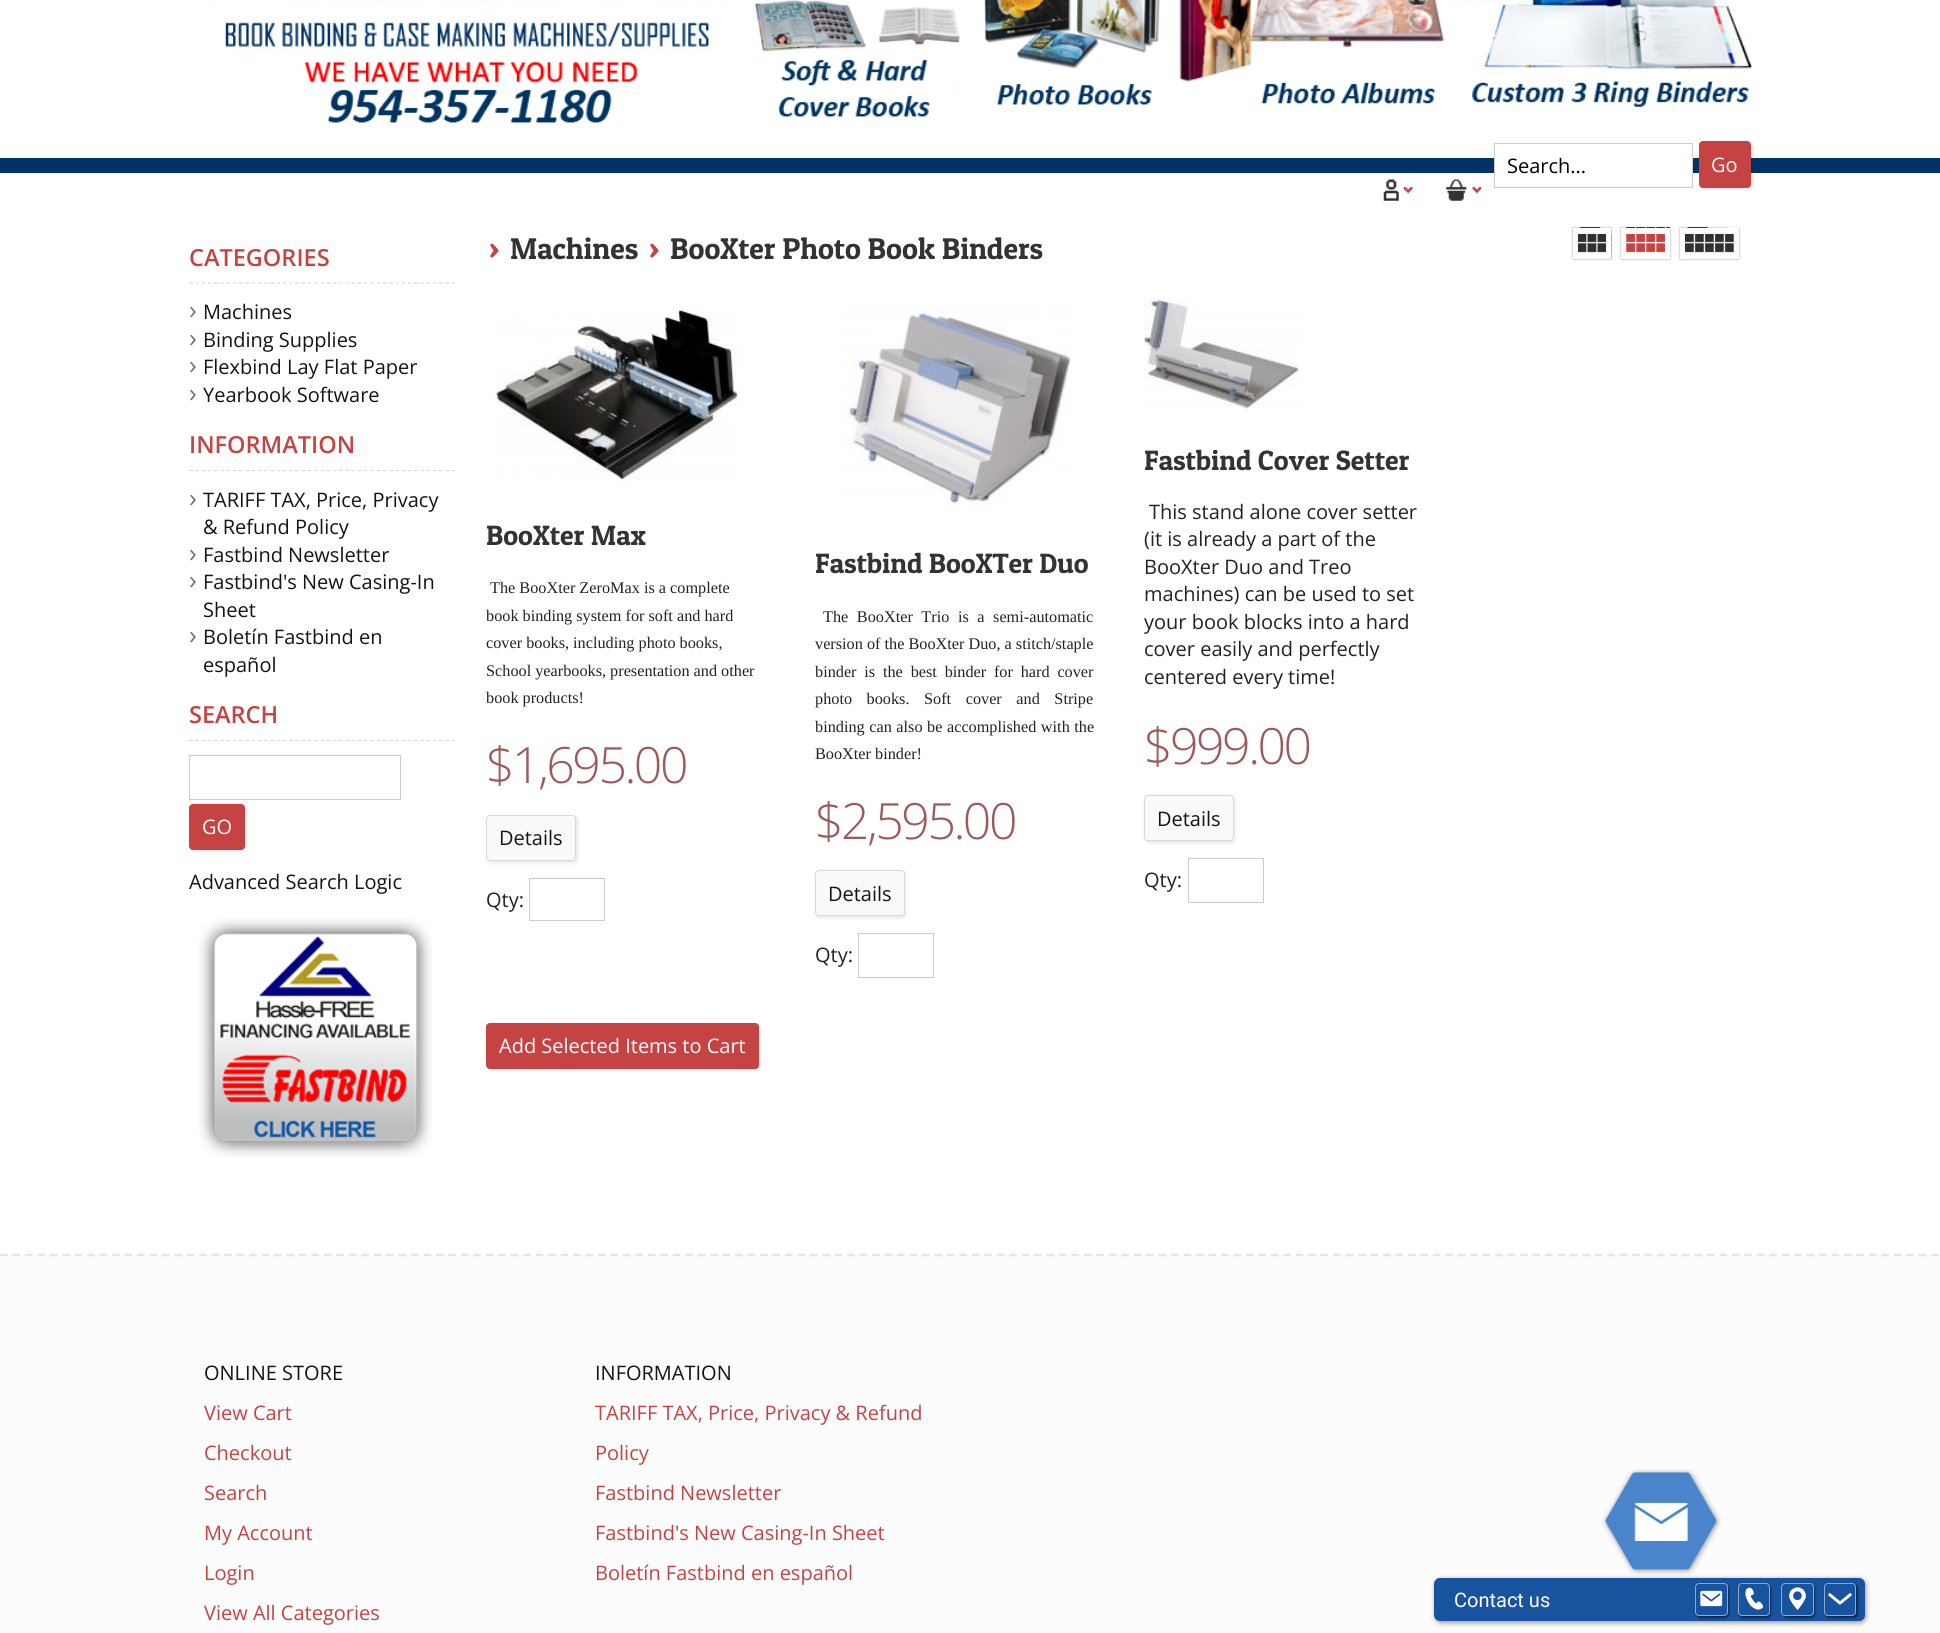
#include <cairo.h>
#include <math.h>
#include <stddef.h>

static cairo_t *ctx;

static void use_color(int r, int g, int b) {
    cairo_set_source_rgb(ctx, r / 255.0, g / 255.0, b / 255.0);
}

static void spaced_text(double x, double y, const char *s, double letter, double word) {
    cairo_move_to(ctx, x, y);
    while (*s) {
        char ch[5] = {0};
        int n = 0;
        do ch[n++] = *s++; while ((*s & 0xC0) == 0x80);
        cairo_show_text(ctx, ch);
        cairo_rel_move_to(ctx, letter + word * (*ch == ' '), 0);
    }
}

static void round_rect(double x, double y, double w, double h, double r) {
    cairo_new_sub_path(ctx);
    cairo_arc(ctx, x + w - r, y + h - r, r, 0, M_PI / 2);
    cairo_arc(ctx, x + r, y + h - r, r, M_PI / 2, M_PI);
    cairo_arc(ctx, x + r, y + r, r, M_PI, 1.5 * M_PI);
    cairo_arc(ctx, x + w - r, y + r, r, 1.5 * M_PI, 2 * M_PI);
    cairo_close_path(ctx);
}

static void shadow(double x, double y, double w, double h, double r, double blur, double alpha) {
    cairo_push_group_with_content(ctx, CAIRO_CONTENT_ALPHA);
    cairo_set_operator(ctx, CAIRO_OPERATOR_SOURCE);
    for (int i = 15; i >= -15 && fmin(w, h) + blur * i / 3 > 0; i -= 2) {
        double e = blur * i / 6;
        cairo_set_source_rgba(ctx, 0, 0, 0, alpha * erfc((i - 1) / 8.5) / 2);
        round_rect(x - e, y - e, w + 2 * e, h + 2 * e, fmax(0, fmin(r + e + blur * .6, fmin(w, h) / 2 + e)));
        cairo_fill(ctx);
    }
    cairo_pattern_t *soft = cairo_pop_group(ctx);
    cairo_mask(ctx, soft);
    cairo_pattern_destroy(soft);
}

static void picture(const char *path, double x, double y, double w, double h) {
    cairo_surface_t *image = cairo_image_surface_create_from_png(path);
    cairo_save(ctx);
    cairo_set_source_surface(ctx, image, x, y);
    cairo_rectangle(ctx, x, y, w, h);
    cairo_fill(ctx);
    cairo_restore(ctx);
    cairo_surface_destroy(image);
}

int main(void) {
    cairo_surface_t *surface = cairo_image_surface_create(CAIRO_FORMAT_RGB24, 1940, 1633);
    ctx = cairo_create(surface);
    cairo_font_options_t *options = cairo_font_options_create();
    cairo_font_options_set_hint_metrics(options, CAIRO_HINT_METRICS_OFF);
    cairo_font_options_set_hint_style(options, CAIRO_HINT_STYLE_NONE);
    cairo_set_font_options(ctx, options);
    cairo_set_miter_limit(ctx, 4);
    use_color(255, 255, 255);
    cairo_paint(ctx);
    picture("img1.png", 207, 0, 1545, 123);
    use_color(0, 51, 101);
    cairo_rectangle(ctx, 0, 158, 1940, 15);
    cairo_fill(ctx);
    use_color(255, 255, 255);
    cairo_rectangle(ctx, 1495, 158, 197, 15);
    cairo_fill(ctx);
    cairo_rectangle(ctx, 1494.5, 143.5, 198, 44);
    use_color(204, 204, 204);
    cairo_set_line_width(ctx, 1);
    cairo_stroke(ctx);
    cairo_select_font_face(ctx, "Open Sans", CAIRO_FONT_SLANT_NORMAL, CAIRO_FONT_WEIGHT_NORMAL);
    cairo_set_font_size(ctx, 20);
    use_color(0, 0, 0);
    cairo_move_to(ctx, 1507, 173);
    cairo_show_text(ctx, "Search...");
    use_color(0, 0, 0);
    shadow(1700, 143, 53, 46, 4, 2, 0.1);
    use_color(198, 67, 67);
    round_rect(1699.5, 141.5, 51, 46, 3.5);
    cairo_fill_preserve(ctx);
    cairo_stroke(ctx);
    use_color(255, 255, 255);
    cairo_move_to(ctx, 1711, 172);
    cairo_show_text(ctx, "Go");
    picture("img2.png", 1383, 179, 30, 22);
    picture("img3.png", 1446, 179, 36, 22);
    cairo_new_path(ctx);
    cairo_move_to(ctx, 189, 283);
    cairo_line_to(ctx, 455, 283);
    use_color(221, 221, 221);
    cairo_set_line_width(ctx, 1.2);
    cairo_set_dash(ctx, (double[]){3.75, 2.5}, 2, 0);
    cairo_stroke(ctx);
    cairo_select_font_face(ctx, "Open Sans SemiBold", CAIRO_FONT_SLANT_NORMAL, CAIRO_FONT_WEIGHT_NORMAL);
    cairo_set_font_size(ctx, 23.5);
    use_color(198, 67, 67);
    cairo_move_to(ctx, 189, 266);
    cairo_show_text(ctx, "CATEGORIES");
    cairo_select_font_face(ctx, "Open Sans", CAIRO_FONT_SLANT_NORMAL, CAIRO_FONT_WEIGHT_NORMAL);
    cairo_set_font_size(ctx, 26);
    use_color(119, 119, 119);
    cairo_move_to(ctx, 189, 319);
    cairo_show_text(ctx, "›");
    cairo_set_font_size(ctx, 20);
    use_color(20, 20, 20);
    cairo_move_to(ctx, 203, 319);
    cairo_show_text(ctx, "Machines");
    cairo_set_font_size(ctx, 26);
    use_color(119, 119, 119);
    cairo_move_to(ctx, 189, 347);
    cairo_show_text(ctx, "›");
    cairo_set_font_size(ctx, 20);
    use_color(20, 20, 20);
    cairo_move_to(ctx, 203, 347);
    cairo_show_text(ctx, "Binding Supplies");
    cairo_set_font_size(ctx, 26);
    use_color(119, 119, 119);
    cairo_move_to(ctx, 189, 374);
    cairo_show_text(ctx, "›");
    cairo_set_font_size(ctx, 20);
    use_color(20, 20, 20);
    cairo_move_to(ctx, 203, 374);
    cairo_show_text(ctx, "Flexbind Lay Flat Paper");
    cairo_set_font_size(ctx, 26);
    use_color(119, 119, 119);
    cairo_move_to(ctx, 189, 402);
    cairo_show_text(ctx, "›");
    cairo_set_font_size(ctx, 20);
    use_color(20, 20, 20);
    cairo_move_to(ctx, 203, 402);
    cairo_show_text(ctx, "Yearbook Software");
    cairo_new_path(ctx);
    cairo_move_to(ctx, 189, 470.5);
    cairo_line_to(ctx, 455, 470.5);
    use_color(221, 221, 221);
    cairo_stroke(ctx);
    cairo_select_font_face(ctx, "Open Sans SemiBold", CAIRO_FONT_SLANT_NORMAL, CAIRO_FONT_WEIGHT_NORMAL);
    cairo_set_font_size(ctx, 23.5);
    use_color(198, 67, 67);
    cairo_move_to(ctx, 189, 453);
    cairo_show_text(ctx, "INFORMATION");
    cairo_select_font_face(ctx, "Open Sans", CAIRO_FONT_SLANT_NORMAL, CAIRO_FONT_WEIGHT_NORMAL);
    cairo_set_font_size(ctx, 26);
    use_color(119, 119, 119);
    cairo_move_to(ctx, 189, 507);
    cairo_show_text(ctx, "›");
    cairo_set_font_size(ctx, 20);
    use_color(20, 20, 20);
    cairo_move_to(ctx, 203, 507);
    cairo_show_text(ctx, "TARIFF TAX, Price, Privacy");
    cairo_move_to(ctx, 203, 534);
    cairo_show_text(ctx, "& Refund Policy");
    cairo_set_font_size(ctx, 26);
    use_color(119, 119, 119);
    cairo_move_to(ctx, 189, 562);
    cairo_show_text(ctx, "›");
    cairo_set_font_size(ctx, 20);
    use_color(20, 20, 20);
    cairo_move_to(ctx, 203, 562);
    cairo_show_text(ctx, "Fastbind Newsletter");
    cairo_set_font_size(ctx, 26);
    use_color(119, 119, 119);
    cairo_move_to(ctx, 189, 589);
    cairo_show_text(ctx, "›");
    cairo_set_font_size(ctx, 20);
    use_color(20, 20, 20);
    cairo_move_to(ctx, 203, 589);
    cairo_show_text(ctx, "Fastbind's New Casing-In");
    cairo_move_to(ctx, 203, 617);
    cairo_show_text(ctx, "Sheet");
    cairo_set_font_size(ctx, 26);
    use_color(119, 119, 119);
    cairo_move_to(ctx, 189, 644);
    cairo_show_text(ctx, "›");
    cairo_set_font_size(ctx, 20);
    use_color(20, 20, 20);
    cairo_move_to(ctx, 203, 644);
    cairo_show_text(ctx, "Boletín Fastbind en");
    cairo_move_to(ctx, 203, 672);
    cairo_show_text(ctx, "español");
    cairo_new_path(ctx);
    cairo_move_to(ctx, 189, 740.5);
    cairo_line_to(ctx, 455, 740.5);
    use_color(221, 221, 221);
    cairo_stroke(ctx);
    cairo_select_font_face(ctx, "Open Sans SemiBold", CAIRO_FONT_SLANT_NORMAL, CAIRO_FONT_WEIGHT_NORMAL);
    cairo_set_font_size(ctx, 23.5);
    use_color(198, 67, 67);
    cairo_move_to(ctx, 189, 723);
    cairo_show_text(ctx, "SEARCH");
    cairo_rectangle(ctx, 189.5, 755.5, 211, 44);
    use_color(204, 204, 204);
    cairo_set_line_width(ctx, 1);
    cairo_set_dash(ctx, NULL, 0, 0);
    cairo_stroke(ctx);
    use_color(0, 0, 0);
    shadow(190, 805, 56, 46, 4, 2, 0.1);
    use_color(198, 67, 67);
    round_rect(189.5, 804.5, 55, 45, 3.5);
    cairo_fill_preserve(ctx);
    cairo_stroke(ctx);
    cairo_select_font_face(ctx, "Open Sans", CAIRO_FONT_SLANT_NORMAL, CAIRO_FONT_WEIGHT_NORMAL);
    cairo_set_font_size(ctx, 20);
    use_color(255, 255, 255);
    cairo_move_to(ctx, 202, 834);
    cairo_show_text(ctx, "GO");
    use_color(20, 20, 20);
    cairo_move_to(ctx, 189, 889);
    cairo_show_text(ctx, "Advanced Search Logic");
    picture("img4.png", 199, 918, 233, 239);
    cairo_select_font_face(ctx, "Patua One", CAIRO_FONT_SLANT_NORMAL, CAIRO_FONT_WEIGHT_NORMAL);
    cairo_set_font_size(ctx, 34);
    use_color(198, 67, 67);
    cairo_move_to(ctx, 489, 259);
    cairo_show_text(ctx, "›");
    cairo_set_font_size(ctx, 30);
    use_color(51, 51, 51);
    cairo_move_to(ctx, 510, 259);
    cairo_show_text(ctx, "Machines");
    cairo_set_font_size(ctx, 34);
    use_color(198, 67, 67);
    cairo_move_to(ctx, 649, 259);
    cairo_show_text(ctx, "›");
    cairo_set_font_size(ctx, 30);
    use_color(51, 51, 51);
    cairo_move_to(ctx, 670, 259);
    cairo_show_text(ctx, "BooXter Photo Book Binders");
    cairo_save(ctx);
    cairo_set_fill_rule(ctx, CAIRO_FILL_RULE_EVEN_ODD);
    cairo_new_path(ctx);
    cairo_move_to(ctx, 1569, 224);
    cairo_line_to(ctx, 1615, 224);
    cairo_line_to(ctx, 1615, 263);
    cairo_line_to(ctx, 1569, 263);
    cairo_close_path(ctx);
    cairo_move_to(ctx, 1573, 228);
    cairo_line_to(ctx, 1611, 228);
    cairo_line_to(ctx, 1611, 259);
    cairo_line_to(ctx, 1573, 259);
    cairo_close_path(ctx);
    cairo_clip(ctx);
    use_color(153, 153, 153);
    shadow(1573, 228, 38, 31, 0, 1, 1);
    cairo_restore(ctx);
    picture("img5.png", 1578, 227, 34, 32);
    use_color(255, 255, 255);
    cairo_rectangle(ctx, 1573, 228, 38, 6);
    cairo_fill(ctx);
    cairo_rectangle(ctx, 1606, 228, 5, 31);
    cairo_fill(ctx);
    cairo_rectangle(ctx, 1573, 253, 38, 6);
    cairo_fill(ctx);
    cairo_save(ctx);
    cairo_set_fill_rule(ctx, CAIRO_FILL_RULE_EVEN_ODD);
    cairo_new_path(ctx);
    cairo_move_to(ctx, 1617, 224);
    cairo_line_to(ctx, 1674, 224);
    cairo_line_to(ctx, 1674, 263);
    cairo_line_to(ctx, 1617, 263);
    cairo_close_path(ctx);
    cairo_move_to(ctx, 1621, 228);
    cairo_line_to(ctx, 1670, 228);
    cairo_line_to(ctx, 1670, 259);
    cairo_line_to(ctx, 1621, 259);
    cairo_close_path(ctx);
    cairo_clip(ctx);
    use_color(153, 153, 153);
    shadow(1621, 228, 49, 31, 0, 1, 1);
    cairo_restore(ctx);
    picture("img6.png", 1626, 227, 44, 26);
    cairo_rectangle(ctx, 1621, 228, 49, 6);
    cairo_fill(ctx);
    cairo_rectangle(ctx, 1665, 228, 5, 31);
    cairo_fill(ctx);
    cairo_rectangle(ctx, 1621, 253, 49, 6);
    cairo_fill(ctx);
    cairo_rectangle(ctx, 1621, 228, 1, 31);
    cairo_fill(ctx);
    cairo_save(ctx);
    cairo_set_fill_rule(ctx, CAIRO_FILL_RULE_EVEN_ODD);
    cairo_new_path(ctx);
    cairo_move_to(ctx, 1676, 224);
    cairo_line_to(ctx, 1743, 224);
    cairo_line_to(ctx, 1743, 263);
    cairo_line_to(ctx, 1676, 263);
    cairo_close_path(ctx);
    cairo_move_to(ctx, 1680, 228);
    cairo_line_to(ctx, 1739, 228);
    cairo_line_to(ctx, 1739, 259);
    cairo_line_to(ctx, 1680, 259);
    cairo_close_path(ctx);
    cairo_clip(ctx);
    use_color(153, 153, 153);
    shadow(1680, 228, 59, 31, 0, 1, 1);
    cairo_restore(ctx);
    picture("img7.png", 1685, 227, 54, 26);
    cairo_rectangle(ctx, 1680, 228, 59, 6);
    cairo_fill(ctx);
    cairo_rectangle(ctx, 1734, 228, 5, 31);
    cairo_fill(ctx);
    cairo_rectangle(ctx, 1680, 258, 59, 1);
    cairo_fill(ctx);
    picture("img8.png", 495, 309, 244, 172);
    cairo_set_font_size(ctx, 28);
    use_color(51, 51, 51);
    cairo_move_to(ctx, 486, 545);
    cairo_show_text(ctx, "BooXter Max");
    cairo_select_font_face(ctx, "Liberation Serif", CAIRO_FONT_SLANT_NORMAL, CAIRO_FONT_WEIGHT_NORMAL);
    cairo_set_font_size(ctx, 16.25);
    use_color(34, 34, 34);
    cairo_move_to(ctx, 490, 593);
    cairo_show_text(ctx, "The BooXter ZeroMax is a complete");
    cairo_move_to(ctx, 486, 621);
    cairo_show_text(ctx, "book binding system for soft and hard");
    cairo_move_to(ctx, 486, 648);
    cairo_show_text(ctx, "cover books, including photo books,");
    cairo_move_to(ctx, 486, 676);
    cairo_show_text(ctx, "School yearbooks, presentation and other");
    cairo_move_to(ctx, 486, 703);
    cairo_show_text(ctx, "book products!");
    cairo_select_font_face(ctx, "Open Sans Light", CAIRO_FONT_SLANT_NORMAL, CAIRO_FONT_WEIGHT_NORMAL);
    cairo_set_font_size(ctx, 50);
    use_color(157, 90, 90);
    spaced_text(486, 783, "$1,695.00", -2.5, 0);
    use_color(0, 0, 0);
    shadow(488, 816, 90, 47, 4, 2, 0.1);
    use_color(249, 249, 249);
    round_rect(486.5, 815.5, 89, 45, 3.5);
    cairo_fill_preserve(ctx);
    use_color(217, 217, 217);
    cairo_stroke(ctx);
    cairo_select_font_face(ctx, "Open Sans", CAIRO_FONT_SLANT_NORMAL, CAIRO_FONT_WEIGHT_NORMAL);
    cairo_set_font_size(ctx, 20);
    use_color(20, 20, 20);
    cairo_move_to(ctx, 499, 845);
    cairo_show_text(ctx, "Details");
    use_color(34, 34, 34);
    cairo_move_to(ctx, 486, 907);
    cairo_show_text(ctx, "Qty:");
    cairo_rectangle(ctx, 529.5, 878.5, 75, 42);
    use_color(204, 204, 204);
    cairo_stroke(ctx);
    picture("img9.png", 842, 306, 231, 200);
    cairo_select_font_face(ctx, "Patua One", CAIRO_FONT_SLANT_NORMAL, CAIRO_FONT_WEIGHT_NORMAL);
    cairo_set_font_size(ctx, 28);
    use_color(51, 51, 51);
    cairo_move_to(ctx, 815, 573);
    cairo_show_text(ctx, "Fastbind BooXTer Duo");
    cairo_select_font_face(ctx, "Liberation Serif", CAIRO_FONT_SLANT_NORMAL, CAIRO_FONT_WEIGHT_NORMAL);
    cairo_set_font_size(ctx, 16.25);
    use_color(34, 34, 34);
    spaced_text(823, 622, "The BooXter Trio is a semi-automatic", 0, 4.5);
    cairo_move_to(ctx, 815, 649);
    cairo_show_text(ctx, "version of the BooXter Duo, a stitch/staple");
    spaced_text(815, 677, "binder is the best binder for hard cover", 0, 3.75);
    spaced_text(815, 704, "photo books. Soft cover and Stripe", 0, 10.5);
    spaced_text(815, 732, "binding can also be accomplished with the", 0, 0.5);
    cairo_move_to(ctx, 815, 759);
    cairo_show_text(ctx, "BooXter binder!");
    cairo_select_font_face(ctx, "Open Sans Light", CAIRO_FONT_SLANT_NORMAL, CAIRO_FONT_WEIGHT_NORMAL);
    cairo_set_font_size(ctx, 50);
    use_color(157, 90, 90);
    spaced_text(815, 839, "$2,595.00", -2.5, 0);
    use_color(0, 0, 0);
    shadow(816, 871, 90, 47, 4, 2, 0.1);
    use_color(249, 249, 249);
    round_rect(815.5, 870.5, 89, 45, 3.5);
    cairo_fill_preserve(ctx);
    use_color(217, 217, 217);
    cairo_stroke(ctx);
    cairo_select_font_face(ctx, "Open Sans", CAIRO_FONT_SLANT_NORMAL, CAIRO_FONT_WEIGHT_NORMAL);
    cairo_set_font_size(ctx, 20);
    use_color(20, 20, 20);
    cairo_move_to(ctx, 828, 901);
    cairo_show_text(ctx, "Details");
    use_color(34, 34, 34);
    cairo_move_to(ctx, 815, 962);
    cairo_show_text(ctx, "Qty:");
    cairo_rectangle(ctx, 858.5, 933.5, 75, 44);
    use_color(204, 204, 204);
    cairo_stroke(ctx);
    picture("img10.png", 1143, 299, 157, 110);
    cairo_select_font_face(ctx, "Patua One", CAIRO_FONT_SLANT_NORMAL, CAIRO_FONT_WEIGHT_NORMAL);
    cairo_set_font_size(ctx, 28);
    use_color(51, 51, 51);
    cairo_move_to(ctx, 1144, 470);
    cairo_show_text(ctx, "Fastbind Cover Setter");
    cairo_select_font_face(ctx, "Open Sans", CAIRO_FONT_SLANT_NORMAL, CAIRO_FONT_WEIGHT_NORMAL);
    cairo_set_font_size(ctx, 20);
    use_color(34, 34, 34);
    cairo_move_to(ctx, 1149, 519);
    cairo_show_text(ctx, "This stand alone cover setter");
    cairo_move_to(ctx, 1144, 546);
    cairo_show_text(ctx, "(it is already a part of the");
    cairo_move_to(ctx, 1144, 574);
    cairo_show_text(ctx, "BooXter Duo and Treo");
    cairo_move_to(ctx, 1144, 601);
    cairo_show_text(ctx, "machines) can be used to set");
    cairo_move_to(ctx, 1144, 629);
    cairo_show_text(ctx, "your book blocks into a hard");
    cairo_move_to(ctx, 1144, 656);
    cairo_show_text(ctx, "cover easily and perfectly");
    cairo_move_to(ctx, 1144, 684);
    cairo_show_text(ctx, "centered every time!");
    cairo_select_font_face(ctx, "Open Sans Light", CAIRO_FONT_SLANT_NORMAL, CAIRO_FONT_WEIGHT_NORMAL);
    cairo_set_font_size(ctx, 50);
    use_color(157, 90, 90);
    spaced_text(1144, 764, "$999.00", -2.5, 0);
    use_color(0, 0, 0);
    shadow(1145, 796, 90, 47, 4, 2, 0.1);
    use_color(249, 249, 249);
    round_rect(1144.5, 795.5, 89, 45, 3.5);
    cairo_fill_preserve(ctx);
    use_color(217, 217, 217);
    cairo_stroke(ctx);
    cairo_select_font_face(ctx, "Open Sans", CAIRO_FONT_SLANT_NORMAL, CAIRO_FONT_WEIGHT_NORMAL);
    cairo_set_font_size(ctx, 20);
    use_color(20, 20, 20);
    cairo_move_to(ctx, 1157, 826);
    cairo_show_text(ctx, "Details");
    use_color(34, 34, 34);
    cairo_move_to(ctx, 1144, 887);
    cairo_show_text(ctx, "Qty:");
    cairo_rectangle(ctx, 1188.5, 858.5, 75, 44);
    use_color(204, 204, 204);
    cairo_stroke(ctx);
    use_color(0, 0, 0);
    shadow(488, 1024, 272, 46, 4, 2, 0.1);
    use_color(198, 67, 67);
    round_rect(486.5, 1023.5, 272, 45, 3.5);
    cairo_fill_preserve(ctx);
    cairo_stroke(ctx);
    use_color(255, 255, 255);
    cairo_move_to(ctx, 499, 1053);
    cairo_show_text(ctx, "Add Selected Items to Cart");
    use_color(252, 252, 252);
    cairo_rectangle(ctx, 0, 1254, 1940, 379);
    cairo_fill(ctx);
    cairo_new_path(ctx);
    cairo_move_to(ctx, 0, 1255);
    cairo_line_to(ctx, 1940, 1255);
    use_color(229, 229, 229);
    cairo_set_line_width(ctx, 2.5);
    cairo_set_dash(ctx, (double[]){7.5, 4.96}, 2, 0);
    cairo_stroke(ctx);
    use_color(20, 20, 20);
    cairo_move_to(ctx, 204, 1380);
    cairo_show_text(ctx, "ONLINE STORE");
    use_color(198, 67, 67);
    cairo_move_to(ctx, 204, 1420);
    cairo_show_text(ctx, "View Cart");
    cairo_move_to(ctx, 204, 1460);
    cairo_show_text(ctx, "Checkout");
    cairo_move_to(ctx, 204, 1500);
    cairo_show_text(ctx, "Search");
    cairo_move_to(ctx, 204, 1540);
    cairo_show_text(ctx, "My Account");
    cairo_move_to(ctx, 204, 1580);
    cairo_show_text(ctx, "Login");
    cairo_move_to(ctx, 204, 1620);
    cairo_show_text(ctx, "View All Categories");
    use_color(20, 20, 20);
    cairo_move_to(ctx, 595, 1380);
    cairo_show_text(ctx, "INFORMATION");
    use_color(198, 67, 67);
    cairo_move_to(ctx, 595, 1420);
    cairo_show_text(ctx, "TARIFF TAX, Price, Privacy & Refund");
    cairo_move_to(ctx, 595, 1460);
    cairo_show_text(ctx, "Policy");
    cairo_move_to(ctx, 595, 1500);
    cairo_show_text(ctx, "Fastbind Newsletter");
    cairo_move_to(ctx, 595, 1540);
    cairo_show_text(ctx, "Fastbind's New Casing-In Sheet");
    cairo_move_to(ctx, 595, 1580);
    cairo_show_text(ctx, "Boletín Fastbind en español");
    use_color(0, 0, 0);
    shadow(1435, 1579, 431, 44, 6, 2.5, 0.4);
    picture("img11.png", 1602, 1469, 119, 106);
    use_color(23, 83, 158);
    round_rect(1434, 1578, 431, 43, 6);
    cairo_fill(ctx);
    cairo_select_font_face(ctx, "Roboto", CAIRO_FONT_SLANT_NORMAL, CAIRO_FONT_WEIGHT_NORMAL);
    use_color(255, 255, 255);
    cairo_move_to(ctx, 1454, 1607);
    cairo_show_text(ctx, "Contact us");
    cairo_save(ctx);
    cairo_set_fill_rule(ctx, CAIRO_FILL_RULE_EVEN_ODD);
    cairo_new_path(ctx);
    cairo_move_to(ctx, 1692, 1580);
    cairo_line_to(ctx, 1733, 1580);
    cairo_line_to(ctx, 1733, 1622);
    cairo_line_to(ctx, 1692, 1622);
    cairo_close_path(ctx);
    cairo_move_to(ctx, 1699, 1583);
    cairo_line_to(ctx, 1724, 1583);
    cairo_curve_to(ctx, 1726, 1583, 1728, 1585, 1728, 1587);
    cairo_line_to(ctx, 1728, 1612);
    cairo_curve_to(ctx, 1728, 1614, 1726, 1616, 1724, 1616);
    cairo_line_to(ctx, 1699, 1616);
    cairo_curve_to(ctx, 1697, 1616, 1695, 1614, 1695, 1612);
    cairo_line_to(ctx, 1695, 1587);
    cairo_curve_to(ctx, 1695, 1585, 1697, 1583, 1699, 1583);
    cairo_close_path(ctx);
    cairo_clip(ctx);
    use_color(0, 0, 0);
    shadow(1696, 1584, 33, 34, 4, 1, 0.5);
    cairo_restore(ctx);
    round_rect(1695.5, 1583.5, 32, 32, 3.5);
    cairo_set_source_rgba(ctx, 1, 1, 1, 0.5);
    cairo_set_line_width(ctx, 1);
    cairo_set_dash(ctx, NULL, 0, 0);
    cairo_stroke(ctx);
    picture("img12.png", 1700, 1590, 23, 17);
    cairo_save(ctx);
    cairo_set_fill_rule(ctx, CAIRO_FILL_RULE_EVEN_ODD);
    cairo_new_path(ctx);
    cairo_move_to(ctx, 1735, 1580);
    cairo_line_to(ctx, 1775, 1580);
    cairo_line_to(ctx, 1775, 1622);
    cairo_line_to(ctx, 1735, 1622);
    cairo_close_path(ctx);
    cairo_move_to(ctx, 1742, 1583);
    cairo_line_to(ctx, 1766, 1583);
    cairo_curve_to(ctx, 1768, 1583, 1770, 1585, 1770, 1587);
    cairo_line_to(ctx, 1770, 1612);
    cairo_curve_to(ctx, 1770, 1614, 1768, 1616, 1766, 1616);
    cairo_line_to(ctx, 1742, 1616);
    cairo_curve_to(ctx, 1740, 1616, 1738, 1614, 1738, 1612);
    cairo_line_to(ctx, 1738, 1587);
    cairo_curve_to(ctx, 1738, 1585, 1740, 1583, 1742, 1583);
    cairo_close_path(ctx);
    cairo_clip(ctx);
    use_color(0, 0, 0);
    shadow(1739, 1584, 32, 34, 4, 1, 0.5);
    cairo_restore(ctx);
    round_rect(1738.5, 1583.5, 31, 32, 3.5);
    cairo_stroke(ctx);
    picture("img13.png", 1745, 1587, 18, 23);
    cairo_save(ctx);
    cairo_set_fill_rule(ctx, CAIRO_FILL_RULE_EVEN_ODD);
    cairo_new_path(ctx);
    cairo_move_to(ctx, 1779, 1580);
    cairo_line_to(ctx, 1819, 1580);
    cairo_line_to(ctx, 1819, 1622);
    cairo_line_to(ctx, 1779, 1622);
    cairo_close_path(ctx);
    cairo_move_to(ctx, 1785, 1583);
    cairo_line_to(ctx, 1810, 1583);
    cairo_curve_to(ctx, 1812, 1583, 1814, 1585, 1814, 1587);
    cairo_line_to(ctx, 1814, 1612);
    cairo_curve_to(ctx, 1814, 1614, 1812, 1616, 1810, 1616);
    cairo_line_to(ctx, 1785, 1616);
    cairo_curve_to(ctx, 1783, 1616, 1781, 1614, 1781, 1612);
    cairo_line_to(ctx, 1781, 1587);
    cairo_curve_to(ctx, 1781, 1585, 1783, 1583, 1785, 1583);
    cairo_close_path(ctx);
    cairo_clip(ctx);
    use_color(0, 0, 0);
    shadow(1783, 1584, 32, 34, 4, 1, 0.5);
    cairo_restore(ctx);
    round_rect(1781.5, 1583.5, 32, 32, 3.5);
    cairo_stroke(ctx);
    picture("img14.png", 1789, 1587, 17, 23);
    cairo_save(ctx);
    cairo_set_fill_rule(ctx, CAIRO_FILL_RULE_EVEN_ODD);
    cairo_new_path(ctx);
    cairo_move_to(ctx, 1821, 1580);
    cairo_line_to(ctx, 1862, 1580);
    cairo_line_to(ctx, 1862, 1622);
    cairo_line_to(ctx, 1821, 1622);
    cairo_close_path(ctx);
    cairo_move_to(ctx, 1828, 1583);
    cairo_line_to(ctx, 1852, 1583);
    cairo_curve_to(ctx, 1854, 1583, 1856, 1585, 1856, 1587);
    cairo_line_to(ctx, 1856, 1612);
    cairo_curve_to(ctx, 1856, 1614, 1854, 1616, 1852, 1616);
    cairo_line_to(ctx, 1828, 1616);
    cairo_curve_to(ctx, 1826, 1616, 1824, 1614, 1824, 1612);
    cairo_line_to(ctx, 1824, 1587);
    cairo_curve_to(ctx, 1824, 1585, 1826, 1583, 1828, 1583);
    cairo_close_path(ctx);
    cairo_clip(ctx);
    use_color(0, 0, 0);
    shadow(1825, 1584, 33, 34, 4, 1, 0.5);
    cairo_restore(ctx);
    round_rect(1824.5, 1583.5, 31, 32, 3.5);
    use_color(139, 169, 206);
    cairo_stroke(ctx);
    picture("img15.png", 1828, 1593, 24, 12);
    cairo_surface_write_to_png(surface, "result.png");
    cairo_font_options_destroy(options);
    cairo_destroy(ctx);
    cairo_surface_destroy(surface);
    return 0;
}
